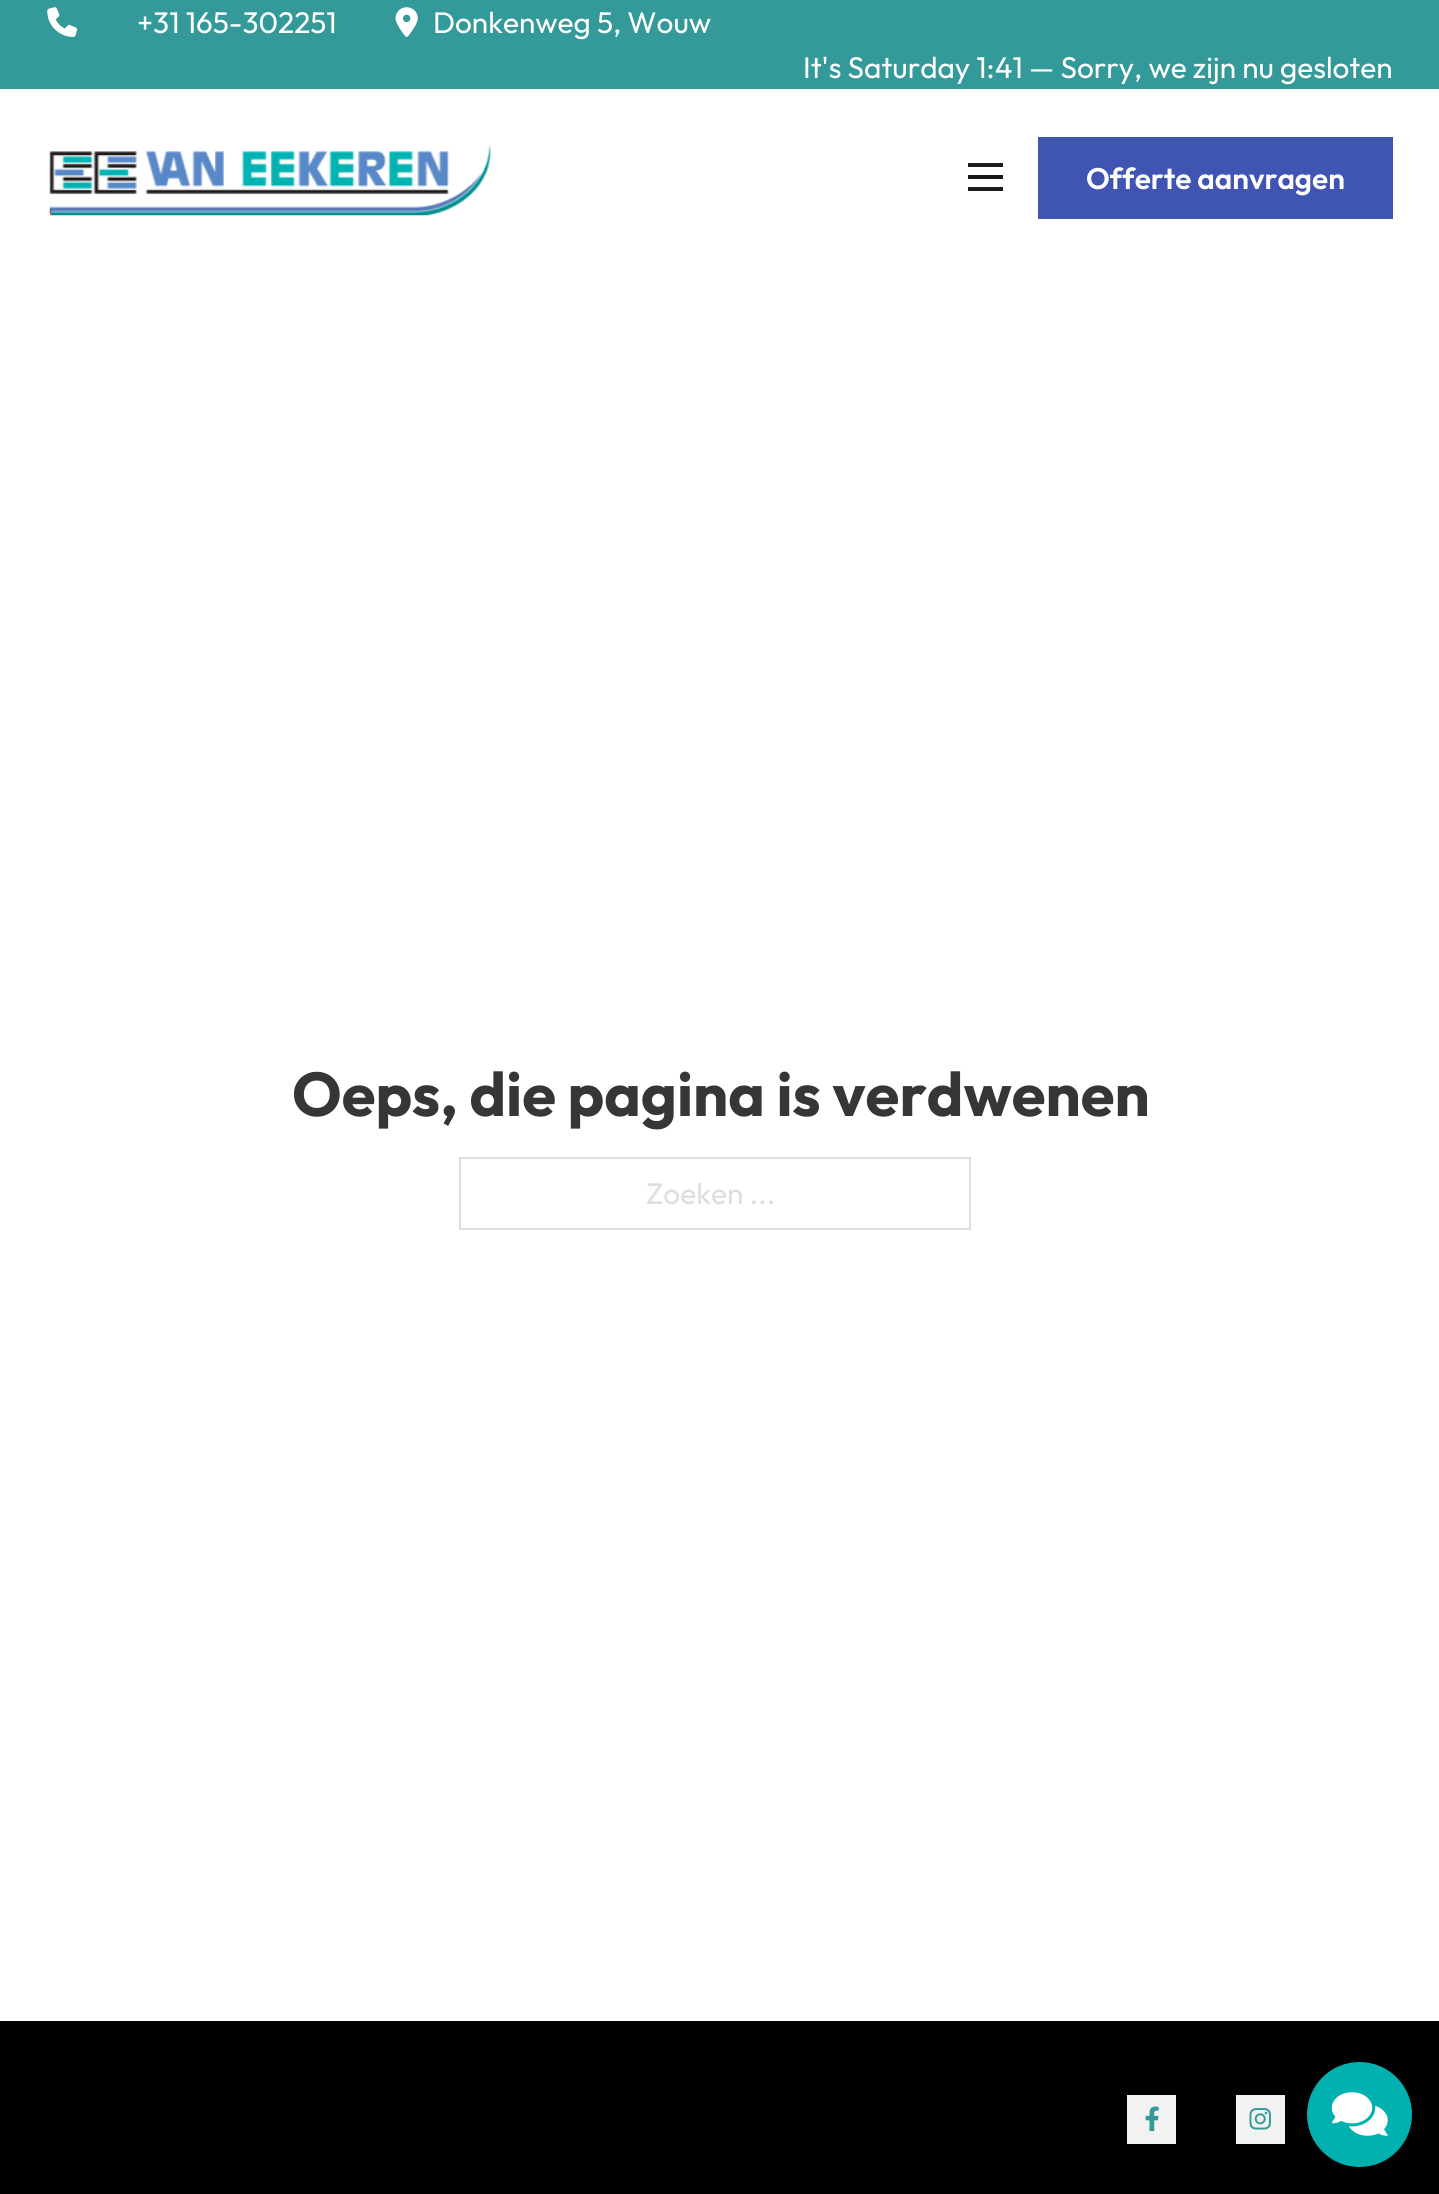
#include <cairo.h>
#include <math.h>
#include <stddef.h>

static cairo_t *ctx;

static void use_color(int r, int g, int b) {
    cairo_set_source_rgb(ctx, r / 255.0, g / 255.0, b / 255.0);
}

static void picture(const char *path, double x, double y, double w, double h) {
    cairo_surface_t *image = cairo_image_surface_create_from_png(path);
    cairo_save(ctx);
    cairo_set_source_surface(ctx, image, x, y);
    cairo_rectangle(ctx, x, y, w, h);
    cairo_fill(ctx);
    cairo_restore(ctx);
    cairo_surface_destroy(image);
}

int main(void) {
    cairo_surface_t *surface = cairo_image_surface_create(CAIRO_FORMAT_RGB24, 1439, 2194);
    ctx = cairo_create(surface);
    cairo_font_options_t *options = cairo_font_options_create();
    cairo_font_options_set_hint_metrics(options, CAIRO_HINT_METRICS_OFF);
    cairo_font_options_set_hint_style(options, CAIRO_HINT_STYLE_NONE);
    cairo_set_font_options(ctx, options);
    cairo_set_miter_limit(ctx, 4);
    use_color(255, 255, 255);
    cairo_paint(ctx);
    use_color(52, 153, 153);
    cairo_rectangle(ctx, 0, 0, 1439, 89);
    cairo_fill(ctx);
    picture("img1.png", 47, 7, 30, 30);
    cairo_select_font_face(ctx, "Outfit", CAIRO_FONT_SLANT_NORMAL, CAIRO_FONT_WEIGHT_NORMAL);
    cairo_set_font_size(ctx, 29.75);
    use_color(255, 255, 255);
    cairo_move_to(ctx, 137, 33);
    cairo_show_text(ctx, "+31 165-302251");
    picture("img2.png", 395, 7, 23, 30);
    cairo_move_to(ctx, 433, 33);
    cairo_show_text(ctx, "Donkenweg 5, Wouw");
    cairo_move_to(ctx, 803, 78);
    cairo_show_text(ctx, "It's Saturday 1:41 — Sorry, we zijn nu gesloten");
    picture("img3.png", 49, 145, 443, 71);
    use_color(26, 26, 26);
    cairo_rectangle(ctx, 968, 163, 35, 4);
    cairo_fill(ctx);
    cairo_rectangle(ctx, 968, 175, 35, 4);
    cairo_fill(ctx);
    cairo_rectangle(ctx, 968, 187, 35, 4);
    cairo_fill(ctx);
    use_color(64, 84, 178);
    cairo_rectangle(ctx, 1038, 137, 355, 82);
    cairo_fill(ctx);
    cairo_select_font_face(ctx, "Outfit SemiBold", CAIRO_FONT_SLANT_NORMAL, CAIRO_FONT_WEIGHT_NORMAL);
    use_color(255, 255, 255);
    cairo_move_to(ctx, 1086, 189);
    cairo_show_text(ctx, "Offerte aanvragen");
    cairo_select_font_face(ctx, "Outfit", CAIRO_FONT_SLANT_NORMAL, CAIRO_FONT_WEIGHT_BOLD);
    cairo_set_font_size(ctx, 61.6);
    use_color(54, 54, 54);
    cairo_move_to(ctx, 292, 1116);
    cairo_show_text(ctx, "Oeps, die pagina is verdwenen");
    cairo_rectangle(ctx, 460, 1158, 510, 71);
    use_color(221, 222, 223);
    cairo_stroke(ctx);
    cairo_select_font_face(ctx, "Outfit", CAIRO_FONT_SLANT_NORMAL, CAIRO_FONT_WEIGHT_NORMAL);
    cairo_set_font_size(ctx, 29.75);
    cairo_move_to(ctx, 646, 1204);
    cairo_show_text(ctx, "Zoeken ...");
    use_color(0, 0, 0);
    cairo_rectangle(ctx, 0, 2021, 1439, 173);
    cairo_fill(ctx);
    use_color(242, 242, 242);
    cairo_rectangle(ctx, 1127, 2095, 49, 49);
    cairo_fill(ctx);
    picture("img4.png", 1145, 2106, 14, 26);
    cairo_rectangle(ctx, 1236, 2095, 49, 49);
    cairo_fill(ctx);
    picture("img5.png", 1249, 2108, 22, 22);
    use_color(0, 177, 176);
    cairo_arc(ctx, 1359.5, 2114.5, 52.5, 0, 2 * M_PI);
    cairo_fill(ctx);
    picture("img6.png", 1332, 2092, 56, 44);
    cairo_surface_write_to_png(surface, "result.png");
    cairo_font_options_destroy(options);
    cairo_destroy(ctx);
    cairo_surface_destroy(surface);
    return 0;
}
